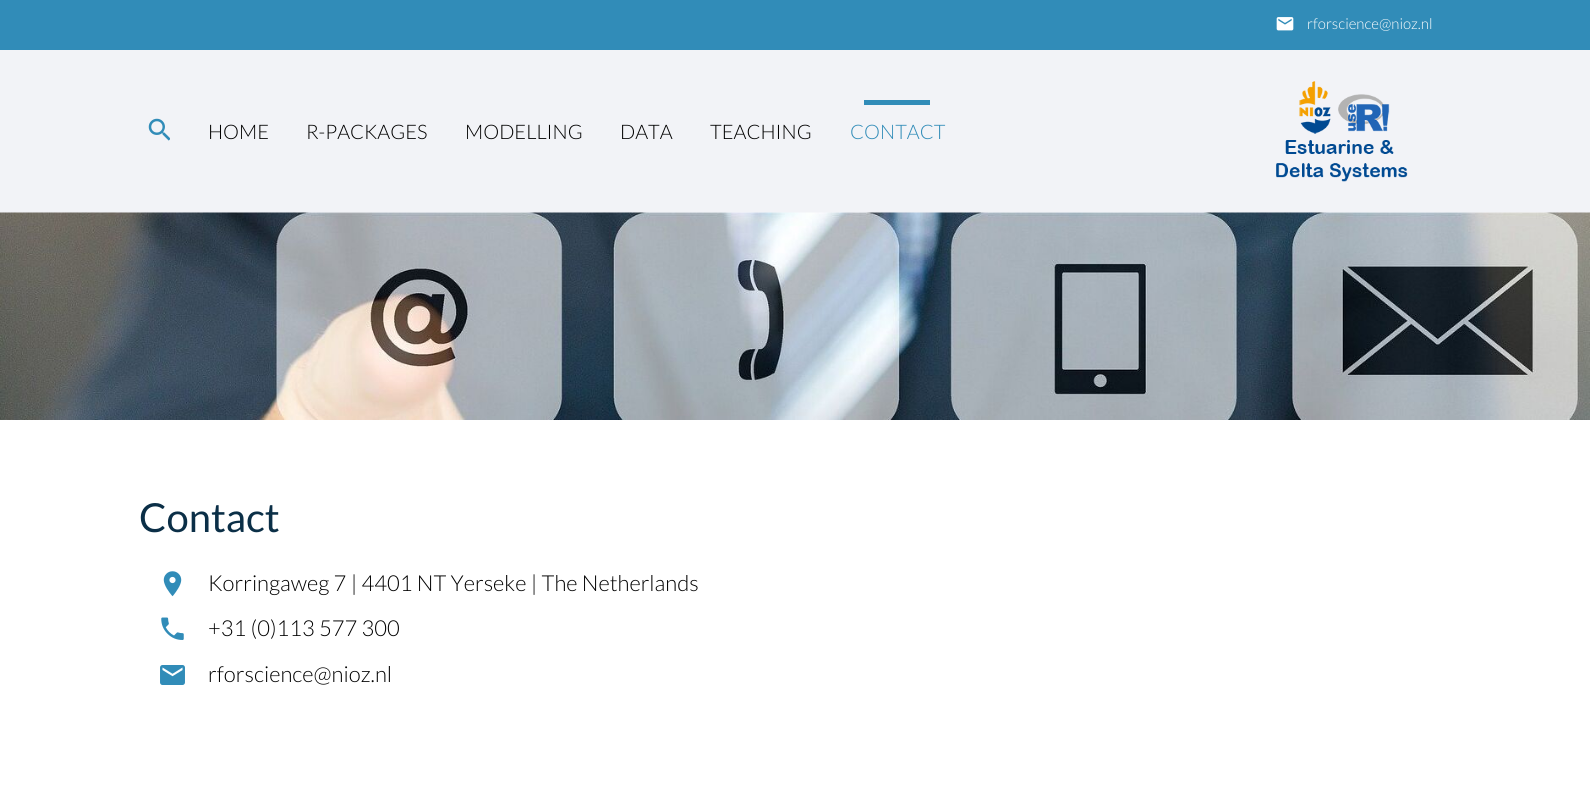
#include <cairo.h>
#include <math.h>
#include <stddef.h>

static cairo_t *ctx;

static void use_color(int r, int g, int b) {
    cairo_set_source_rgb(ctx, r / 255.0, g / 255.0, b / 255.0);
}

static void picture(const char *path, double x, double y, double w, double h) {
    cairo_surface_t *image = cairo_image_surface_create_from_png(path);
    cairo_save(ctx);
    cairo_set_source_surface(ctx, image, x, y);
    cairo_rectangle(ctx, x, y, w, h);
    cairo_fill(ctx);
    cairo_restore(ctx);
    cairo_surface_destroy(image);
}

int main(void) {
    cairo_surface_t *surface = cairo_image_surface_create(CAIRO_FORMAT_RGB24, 1590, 804);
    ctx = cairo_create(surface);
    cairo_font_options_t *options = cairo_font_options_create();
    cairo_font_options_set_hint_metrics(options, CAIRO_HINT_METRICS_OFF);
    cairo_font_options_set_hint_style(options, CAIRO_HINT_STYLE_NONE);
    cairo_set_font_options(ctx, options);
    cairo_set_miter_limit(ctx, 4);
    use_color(255, 255, 255);
    cairo_paint(ctx);
    use_color(49, 140, 184);
    cairo_rectangle(ctx, 0, 0, 1590, 50);
    cairo_fill(ctx);
    picture("img1.png", 1276, 17, 18, 14);
    cairo_select_font_face(ctx, "Lato Light", CAIRO_FONT_SLANT_NORMAL, CAIRO_FONT_WEIGHT_NORMAL);
    cairo_set_font_size(ctx, 15);
    use_color(255, 255, 255);
    cairo_move_to(ctx, 1307, 29);
    cairo_show_text(ctx, "rforscience@nioz.nl");
    use_color(242, 243, 247);
    cairo_rectangle(ctx, 0, 50, 1590, 163);
    cairo_fill(ctx);
    picture("img2.png", 148, 118, 22, 23);
    cairo_set_font_size(ctx, 20);
    use_color(0, 0, 0);
    cairo_move_to(ctx, 208, 139);
    cairo_show_text(ctx, "HOME");
    cairo_move_to(ctx, 306, 139);
    cairo_show_text(ctx, "R-PACKAGES");
    cairo_move_to(ctx, 465, 139);
    cairo_show_text(ctx, "MODELLING");
    cairo_move_to(ctx, 620, 139);
    cairo_show_text(ctx, "DATA");
    cairo_move_to(ctx, 710, 139);
    cairo_show_text(ctx, "TEACHING");
    use_color(49, 140, 184);
    cairo_rectangle(ctx, 864, 100, 66, 5);
    cairo_fill(ctx);
    cairo_move_to(ctx, 850, 139);
    cairo_show_text(ctx, "CONTACT");
    picture("img3.png", 1276, 81, 132, 101);
    picture("img4.png", 0, 212, 1590, 208);
    cairo_select_font_face(ctx, "Lato", CAIRO_FONT_SLANT_NORMAL, CAIRO_FONT_WEIGHT_NORMAL);
    cairo_set_font_size(ctx, 40);
    use_color(11, 47, 71);
    cairo_move_to(ctx, 139, 532);
    cairo_show_text(ctx, "Contact");
    picture("img5.png", 163, 571, 19, 26);
    cairo_select_font_face(ctx, "Lato Light", CAIRO_FONT_SLANT_NORMAL, CAIRO_FONT_WEIGHT_NORMAL);
    cairo_set_font_size(ctx, 22);
    use_color(0, 0, 0);
    cairo_move_to(ctx, 208, 591);
    cairo_show_text(ctx, "Korringaweg 7 | 4401 NT Yerseke | The Netherlands");
    picture("img6.png", 161, 617, 23, 23);
    cairo_move_to(ctx, 208, 636);
    cairo_show_text(ctx, "+31 (0)113 577 300");
    picture("img7.png", 160, 665, 25, 20);
    cairo_move_to(ctx, 208, 682);
    cairo_show_text(ctx, "rforscience@nioz.nl");
    cairo_surface_write_to_png(surface, "result.png");
    cairo_font_options_destroy(options);
    cairo_destroy(ctx);
    cairo_surface_destroy(surface);
    return 0;
}
